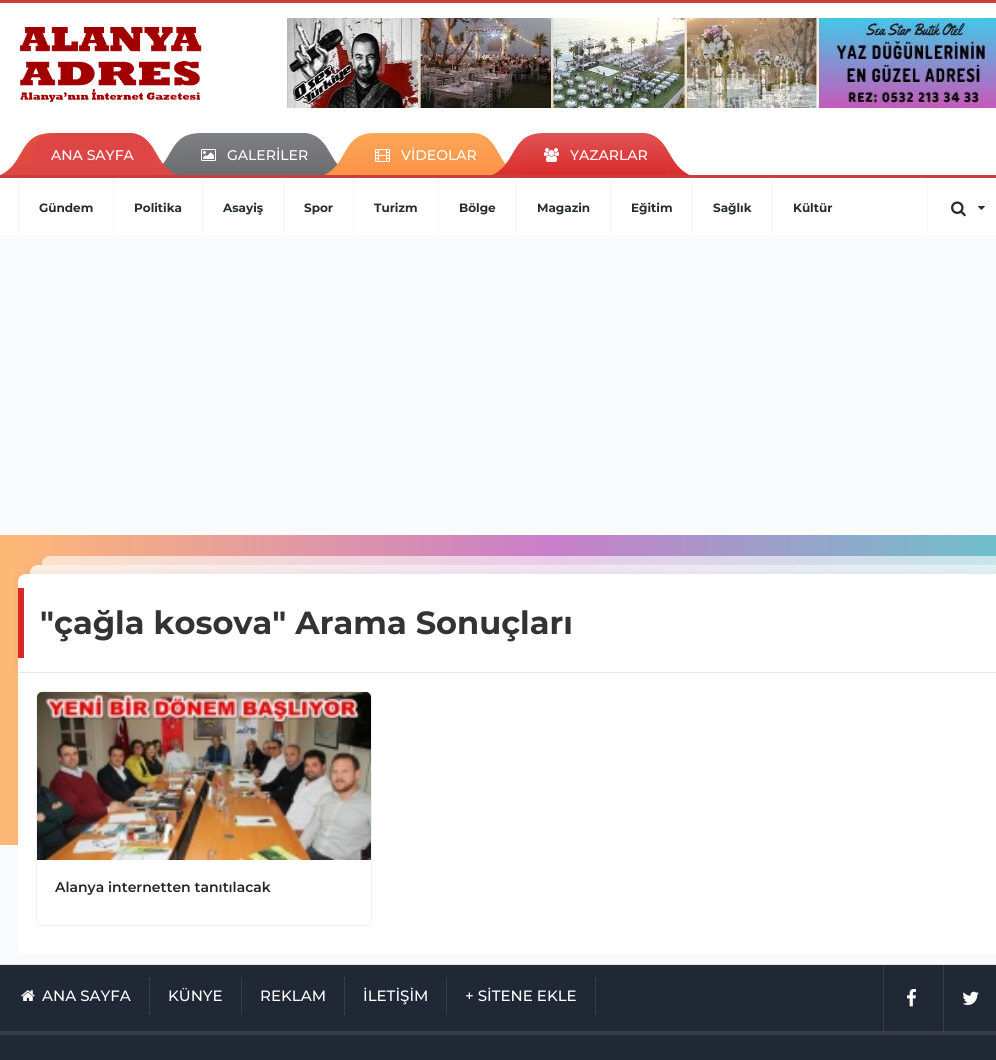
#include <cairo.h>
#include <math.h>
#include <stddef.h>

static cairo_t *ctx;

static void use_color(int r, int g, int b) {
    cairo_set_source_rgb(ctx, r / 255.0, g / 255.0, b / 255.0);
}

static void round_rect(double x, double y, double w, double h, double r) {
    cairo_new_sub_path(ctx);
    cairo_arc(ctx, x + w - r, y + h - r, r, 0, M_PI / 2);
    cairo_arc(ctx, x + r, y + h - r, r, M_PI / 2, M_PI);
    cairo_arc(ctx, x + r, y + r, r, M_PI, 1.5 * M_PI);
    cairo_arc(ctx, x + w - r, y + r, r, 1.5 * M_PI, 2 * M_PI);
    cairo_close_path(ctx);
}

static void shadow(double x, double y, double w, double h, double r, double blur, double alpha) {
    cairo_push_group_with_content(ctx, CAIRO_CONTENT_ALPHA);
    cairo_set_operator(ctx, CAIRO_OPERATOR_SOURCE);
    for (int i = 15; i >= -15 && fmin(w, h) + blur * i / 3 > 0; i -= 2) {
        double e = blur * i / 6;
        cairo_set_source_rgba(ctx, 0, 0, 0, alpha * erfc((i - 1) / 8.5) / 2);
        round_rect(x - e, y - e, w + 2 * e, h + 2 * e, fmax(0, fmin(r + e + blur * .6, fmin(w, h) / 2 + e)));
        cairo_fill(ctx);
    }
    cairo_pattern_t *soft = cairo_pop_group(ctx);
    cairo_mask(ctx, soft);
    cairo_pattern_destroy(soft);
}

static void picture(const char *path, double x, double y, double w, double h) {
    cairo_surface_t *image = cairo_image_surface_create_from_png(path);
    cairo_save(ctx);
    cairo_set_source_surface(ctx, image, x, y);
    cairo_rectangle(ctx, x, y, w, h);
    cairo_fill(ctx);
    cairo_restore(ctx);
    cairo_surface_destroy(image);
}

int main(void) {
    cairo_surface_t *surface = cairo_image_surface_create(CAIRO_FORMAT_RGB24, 996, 1060);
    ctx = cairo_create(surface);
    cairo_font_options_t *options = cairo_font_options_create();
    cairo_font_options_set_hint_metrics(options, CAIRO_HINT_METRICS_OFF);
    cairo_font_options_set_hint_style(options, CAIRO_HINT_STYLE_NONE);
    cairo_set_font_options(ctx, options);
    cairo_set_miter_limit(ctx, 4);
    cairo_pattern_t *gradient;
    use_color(248, 250, 252);
    cairo_paint(ctx);
    use_color(255, 255, 255);
    cairo_rectangle(ctx, 0, 3, 996, 172);
    cairo_fill(ctx);
    use_color(200, 63, 62);
    cairo_rectangle(ctx, 0, 0, 996, 3);
    cairo_fill(ctx);
    picture("img1.png", 20, 27, 182, 75);
    picture("img2.png", 287, 18, 709, 90);
    picture("img3.png", 0, 133, 54, 42);
    picture("img5.png", 162, 133, 41, 42);
    picture("img4.png", 131, 133, 46, 42);
    use_color(222, 70, 69);
    cairo_new_path(ctx);
    cairo_move_to(ctx, 55, 133);
    cairo_line_to(ctx, 130, 133);
    cairo_curve_to(ctx, 142.5, 133, 153, 143.5, 153, 156);
    cairo_line_to(ctx, 153, 175);
    cairo_line_to(ctx, 32, 175);
    cairo_line_to(ctx, 32, 156);
    cairo_curve_to(ctx, 32, 143.5, 42.5, 133, 55, 133);
    cairo_close_path(ctx);
    cairo_fill(ctx);
    cairo_select_font_face(ctx, "Montserrat Medium", CAIRO_FONT_SLANT_NORMAL, CAIRO_FONT_WEIGHT_NORMAL);
    cairo_set_font_size(ctx, 14);
    use_color(255, 255, 255);
    cairo_move_to(ctx, 51, 160);
    cairo_show_text(ctx, "ANA SAYFA");
    picture("img7.png", 305, 133, 33, 41);
    gradient = cairo_pattern_create_linear(254, 133, 254, 175);
    cairo_pattern_add_color_stop_rgba(gradient, 0, 0.498, 0.502, 0.514, 1);
    cairo_pattern_add_color_stop_rgba(gradient, 1, 0.424, 0.424, 0.435, 1);
    cairo_set_source(ctx, gradient);
    cairo_pattern_destroy(gradient);
    cairo_new_path(ctx);
    cairo_move_to(ctx, 204, 133);
    cairo_line_to(ctx, 304, 133);
    cairo_curve_to(ctx, 316.5, 133, 327, 143.5, 327, 156);
    cairo_line_to(ctx, 327, 175);
    cairo_line_to(ctx, 181, 175);
    cairo_line_to(ctx, 181, 156);
    cairo_curve_to(ctx, 181, 143.5, 191.5, 133, 204, 133);
    cairo_close_path(ctx);
    cairo_fill(ctx);
    picture("img6.png", 201, 149, 15, 12);
    use_color(255, 255, 255);
    cairo_move_to(ctx, 227, 160);
    cairo_show_text(ctx, "GALERİLER");
    picture("img8.png", 324, 133, 53, 42);
    picture("img10.png", 474, 133, 32, 40);
    gradient = cairo_pattern_create_linear(426, 133, 426, 175);
    cairo_pattern_add_color_stop_rgba(gradient, 0, 0.988, 0.651, 0.345, 1);
    cairo_pattern_add_color_stop_rgba(gradient, 1, 0.984, 0.573, 0.275, 1);
    cairo_set_source(ctx, gradient);
    cairo_pattern_destroy(gradient);
    cairo_new_path(ctx);
    cairo_move_to(ctx, 378, 133);
    cairo_line_to(ctx, 473, 133);
    cairo_curve_to(ctx, 485.5, 133, 496, 143.5, 496, 156);
    cairo_line_to(ctx, 496, 175);
    cairo_line_to(ctx, 355, 175);
    cairo_line_to(ctx, 355, 156);
    cairo_curve_to(ctx, 355, 143.5, 365.5, 133, 378, 133);
    cairo_close_path(ctx);
    cairo_fill(ctx);
    picture("img9.png", 375, 149, 15, 13);
    use_color(255, 255, 255);
    cairo_move_to(ctx, 401, 160);
    cairo_show_text(ctx, "VİDEOLAR");
    picture("img11.png", 492, 133, 54, 42);
    picture("img13.png", 644, 133, 46, 42);
    gradient = cairo_pattern_create_linear(595, 133, 595, 175);
    cairo_pattern_add_color_stop_rgba(gradient, 0, 0.878, 0.329, 0.329, 1);
    cairo_pattern_add_color_stop_rgba(gradient, 1, 0.851, 0.173, 0.169, 1);
    cairo_set_source(ctx, gradient);
    cairo_pattern_destroy(gradient);
    cairo_new_path(ctx);
    cairo_move_to(ctx, 547, 133);
    cairo_line_to(ctx, 643, 133);
    cairo_curve_to(ctx, 655.5, 133, 666, 143.5, 666, 156);
    cairo_line_to(ctx, 666, 175);
    cairo_line_to(ctx, 524, 175);
    cairo_line_to(ctx, 524, 156);
    cairo_curve_to(ctx, 524, 143.5, 534.5, 133, 547, 133);
    cairo_close_path(ctx);
    cairo_fill(ctx);
    picture("img12.png", 544, 148, 15, 14);
    use_color(255, 255, 255);
    cairo_move_to(ctx, 570, 160);
    cairo_show_text(ctx, "YAZARLAR");
    cairo_rectangle(ctx, 0, 178, 996, 57);
    cairo_fill(ctx);
    use_color(200, 63, 62);
    cairo_rectangle(ctx, 0, 175, 996, 3);
    cairo_fill(ctx);
    use_color(245, 245, 245);
    cairo_rectangle(ctx, 18, 178, 1, 57);
    cairo_fill(ctx);
    cairo_select_font_face(ctx, "Montserrat", CAIRO_FONT_SLANT_NORMAL, CAIRO_FONT_WEIGHT_BOLD);
    cairo_set_font_size(ctx, 12);
    use_color(37, 45, 49);
    cairo_move_to(ctx, 39, 212);
    cairo_show_text(ctx, "Gündem");
    use_color(245, 245, 245);
    cairo_rectangle(ctx, 113, 178, 1, 57);
    cairo_fill(ctx);
    use_color(37, 45, 49);
    cairo_move_to(ctx, 134, 212);
    cairo_show_text(ctx, "Politika");
    use_color(245, 245, 245);
    cairo_rectangle(ctx, 202, 178, 1, 57);
    cairo_fill(ctx);
    use_color(37, 45, 49);
    cairo_move_to(ctx, 223, 212);
    cairo_show_text(ctx, "Asayiş");
    use_color(245, 245, 245);
    cairo_rectangle(ctx, 283, 178, 1, 57);
    cairo_fill(ctx);
    use_color(37, 45, 49);
    cairo_move_to(ctx, 304, 212);
    cairo_show_text(ctx, "Spor");
    use_color(245, 245, 245);
    cairo_rectangle(ctx, 353, 178, 1, 57);
    cairo_fill(ctx);
    use_color(37, 45, 49);
    cairo_move_to(ctx, 374, 212);
    cairo_show_text(ctx, "Turizm");
    use_color(245, 245, 245);
    cairo_rectangle(ctx, 438, 178, 1, 57);
    cairo_fill(ctx);
    use_color(37, 45, 49);
    cairo_move_to(ctx, 459, 212);
    cairo_show_text(ctx, "Bölge");
    use_color(245, 245, 245);
    cairo_rectangle(ctx, 516, 178, 1, 57);
    cairo_fill(ctx);
    use_color(37, 45, 49);
    cairo_move_to(ctx, 537, 212);
    cairo_show_text(ctx, "Magazin");
    use_color(245, 245, 245);
    cairo_rectangle(ctx, 610, 178, 1, 57);
    cairo_fill(ctx);
    use_color(37, 45, 49);
    cairo_move_to(ctx, 631, 212);
    cairo_show_text(ctx, "Eğitim");
    use_color(245, 245, 245);
    cairo_rectangle(ctx, 692, 178, 1, 57);
    cairo_fill(ctx);
    use_color(37, 45, 49);
    cairo_move_to(ctx, 713, 212);
    cairo_show_text(ctx, "Sağlık");
    use_color(245, 245, 245);
    cairo_rectangle(ctx, 772, 178, 1, 57);
    cairo_fill(ctx);
    use_color(37, 45, 49);
    cairo_move_to(ctx, 793, 212);
    cairo_show_text(ctx, "Kültür");
    use_color(245, 245, 245);
    cairo_rectangle(ctx, 927, 178, 1, 57);
    cairo_fill(ctx);
    picture("img14.png", 951, 201, 15, 16);
    picture("img15.png", 978, 206, 7, 4);
    gradient = cairo_pattern_create_linear(0, 545, 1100, 545);
    cairo_pattern_add_color_stop_rgba(gradient, 0, 0.996, 0.722, 0.459, 1);
    cairo_pattern_add_color_stop_rgba(gradient, 0.5, 0.788, 0.494, 0.792, 1);
    cairo_pattern_add_color_stop_rgba(gradient, 1, 0.357, 0.812, 0.796, 1);
    cairo_set_source(ctx, gradient);
    cairo_pattern_destroy(gradient);
    cairo_rectangle(ctx, 0, 535, 996, 10);
    cairo_fill(ctx);
    gradient = cairo_pattern_create_linear(0, 695, 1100, 695);
    cairo_pattern_add_color_stop_rgba(gradient, 0, 0.996, 0.722, 0.459, 1);
    cairo_pattern_add_color_stop_rgba(gradient, 0.5, 0.788, 0.494, 0.792, 1);
    cairo_pattern_add_color_stop_rgba(gradient, 1, 0.357, 0.812, 0.796, 1);
    cairo_set_source(ctx, gradient);
    cairo_pattern_destroy(gradient);
    cairo_rectangle(ctx, 0, 545, 996, 300);
    cairo_fill(ctx);
    cairo_set_source_rgba(ctx, 1, 1, 1, 0.6);
    cairo_new_path(ctx);
    cairo_move_to(ctx, 50, 556);
    cairo_line_to(ctx, 996, 556);
    cairo_curve_to(ctx, 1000.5, 556, 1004, 559.5, 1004, 564);
    cairo_line_to(ctx, 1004, 565);
    cairo_line_to(ctx, 42, 565);
    cairo_line_to(ctx, 42, 564);
    cairo_curve_to(ctx, 42, 559.5, 45.5, 556, 50, 556);
    cairo_close_path(ctx);
    cairo_fill(ctx);
    cairo_set_source_rgba(ctx, 1, 1, 1, 0.8);
    cairo_new_path(ctx);
    cairo_move_to(ctx, 38, 565);
    cairo_line_to(ctx, 996, 565);
    cairo_curve_to(ctx, 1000.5, 565, 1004, 568.5, 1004, 573);
    cairo_line_to(ctx, 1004, 574);
    cairo_line_to(ctx, 30, 574);
    cairo_line_to(ctx, 30, 573);
    cairo_curve_to(ctx, 30, 568.5, 33.5, 565, 38, 565);
    cairo_close_path(ctx);
    cairo_fill(ctx);
    use_color(255, 255, 255);
    cairo_new_path(ctx);
    cairo_move_to(ctx, 18, 673);
    cairo_line_to(ctx, 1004, 673);
    cairo_line_to(ctx, 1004, 946);
    cairo_curve_to(ctx, 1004, 950.5, 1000.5, 954, 996, 954);
    cairo_line_to(ctx, 26, 954);
    cairo_curve_to(ctx, 21.5, 954, 18, 950.5, 18, 946);
    cairo_close_path(ctx);
    cairo_fill(ctx);
    use_color(110, 131, 152);
    shadow(18, 570, 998, 99, 8, 4, 0.08);
    use_color(255, 255, 255);
    cairo_new_path(ctx);
    cairo_move_to(ctx, 26, 574);
    cairo_line_to(ctx, 996, 574);
    cairo_curve_to(ctx, 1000.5, 574, 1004, 577.5, 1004, 582);
    cairo_line_to(ctx, 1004, 673);
    cairo_line_to(ctx, 18, 673);
    cairo_line_to(ctx, 18, 582);
    cairo_curve_to(ctx, 18, 577.5, 21.5, 574, 26, 574);
    cairo_close_path(ctx);
    cairo_fill(ctx);
    use_color(230, 230, 230);
    cairo_rectangle(ctx, 18, 672, 978, 1);
    cairo_fill(ctx);
    use_color(216, 39, 38);
    cairo_rectangle(ctx, 18, 588, 6, 70);
    cairo_fill(ctx);
    cairo_set_font_size(ctx, 32);
    use_color(51, 51, 51);
    cairo_move_to(ctx, 40, 634);
    cairo_show_text(ctx, "\"çağla kosova\" Arama Sonuçları");
    round_rect(36.5, 691.5, 335, 234, 4.5);
    use_color(238, 243, 247);
    cairo_set_line_width(ctx, 1);
    cairo_stroke(ctx);
    picture("img16.png", 37, 692, 334, 168);
    cairo_select_font_face(ctx, "Montserrat SemiBold", CAIRO_FONT_SLANT_NORMAL, CAIRO_FONT_WEIGHT_NORMAL);
    cairo_set_font_size(ctx, 14);
    use_color(37, 37, 37);
    cairo_move_to(ctx, 55, 892);
    cairo_show_text(ctx, "Alanya internetten tanıtılacak");
    use_color(32, 39, 53);
    cairo_rectangle(ctx, 0, 965, 996, 66);
    cairo_fill(ctx);
    use_color(223, 233, 238);
    cairo_rectangle(ctx, 0, 964, 996, 1);
    cairo_fill(ctx);
    use_color(55, 61, 74);
    cairo_rectangle(ctx, 0, 1031, 996, 4);
    cairo_fill(ctx);
    cairo_rectangle(ctx, 149, 977, 1, 38);
    cairo_fill(ctx);
    picture("img17.png", 21, 990, 14, 11);
    cairo_select_font_face(ctx, "Montserrat Medium", CAIRO_FONT_SLANT_NORMAL, CAIRO_FONT_WEIGHT_NORMAL);
    cairo_set_font_size(ctx, 15);
    use_color(255, 255, 255);
    cairo_move_to(ctx, 42, 1001);
    cairo_show_text(ctx, "ANA SAYFA");
    use_color(55, 61, 74);
    cairo_rectangle(ctx, 241, 977, 1, 38);
    cairo_fill(ctx);
    use_color(255, 255, 255);
    cairo_move_to(ctx, 168, 1001);
    cairo_show_text(ctx, "KÜNYE");
    use_color(55, 61, 74);
    cairo_rectangle(ctx, 344, 977, 1, 38);
    cairo_fill(ctx);
    use_color(255, 255, 255);
    cairo_move_to(ctx, 260, 1001);
    cairo_show_text(ctx, "REKLAM");
    use_color(55, 61, 74);
    cairo_rectangle(ctx, 446, 977, 1, 38);
    cairo_fill(ctx);
    use_color(255, 255, 255);
    cairo_move_to(ctx, 363, 1001);
    cairo_show_text(ctx, "İLETİŞİM");
    use_color(55, 61, 74);
    cairo_rectangle(ctx, 595, 977, 1, 38);
    cairo_fill(ctx);
    use_color(255, 255, 255);
    cairo_move_to(ctx, 465, 1001);
    cairo_show_text(ctx, "+ SİTENE EKLE");
    use_color(55, 61, 74);
    cairo_rectangle(ctx, 883, 965, 1, 66);
    cairo_fill(ctx);
    cairo_rectangle(ctx, 943, 965, 1, 66);
    cairo_fill(ctx);
    picture("img18.png", 907, 989, 9, 18);
    picture("img19.png", 962, 991, 17, 14);
    use_color(32, 39, 53);
    cairo_rectangle(ctx, 0, 1035, 996, 25);
    cairo_fill(ctx);
    cairo_surface_write_to_png(surface, "result.png");
    cairo_font_options_destroy(options);
    cairo_destroy(ctx);
    cairo_surface_destroy(surface);
    return 0;
}
